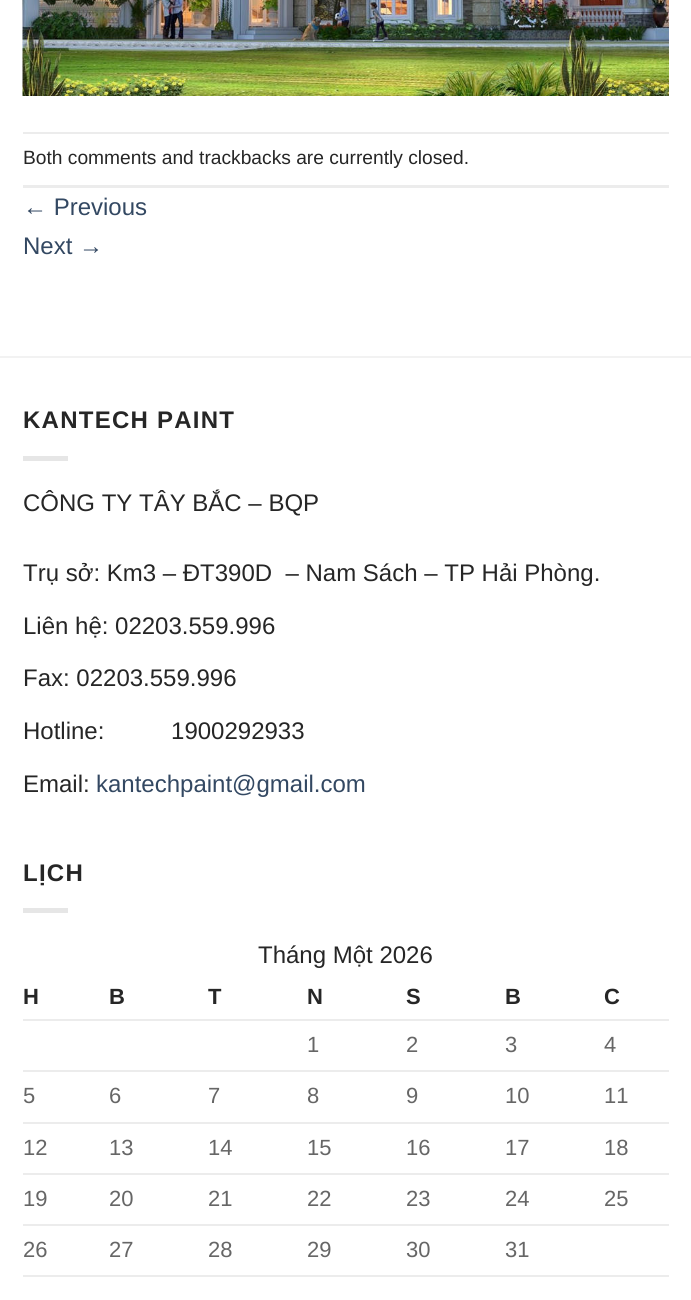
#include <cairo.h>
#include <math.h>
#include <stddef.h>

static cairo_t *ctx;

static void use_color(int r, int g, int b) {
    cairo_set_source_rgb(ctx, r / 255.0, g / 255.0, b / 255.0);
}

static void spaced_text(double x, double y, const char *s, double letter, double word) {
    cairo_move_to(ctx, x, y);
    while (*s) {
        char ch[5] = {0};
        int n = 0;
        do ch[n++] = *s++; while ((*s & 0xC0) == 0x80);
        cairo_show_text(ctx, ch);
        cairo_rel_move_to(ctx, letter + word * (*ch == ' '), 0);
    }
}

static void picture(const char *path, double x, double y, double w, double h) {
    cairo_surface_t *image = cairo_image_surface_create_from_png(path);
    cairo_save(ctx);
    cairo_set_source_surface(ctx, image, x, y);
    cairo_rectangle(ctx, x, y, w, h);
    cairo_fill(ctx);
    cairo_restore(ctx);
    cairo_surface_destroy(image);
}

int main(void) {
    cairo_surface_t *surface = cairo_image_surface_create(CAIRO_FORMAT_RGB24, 691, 1300);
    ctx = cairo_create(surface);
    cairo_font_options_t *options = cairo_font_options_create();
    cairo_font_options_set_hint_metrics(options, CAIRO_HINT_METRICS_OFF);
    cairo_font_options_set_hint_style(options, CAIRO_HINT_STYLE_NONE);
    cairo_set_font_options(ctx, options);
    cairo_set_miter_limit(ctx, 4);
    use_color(255, 255, 255);
    cairo_paint(ctx);
    picture("img1.png", 22, 0, 647, 96);
    use_color(236, 236, 236);
    cairo_rectangle(ctx, 23, 132, 646, 2);
    cairo_fill(ctx);
    cairo_rectangle(ctx, 23, 185, 646, 3);
    cairo_fill(ctx);
    cairo_select_font_face(ctx, "Liberation Sans", CAIRO_FONT_SLANT_NORMAL, CAIRO_FONT_WEIGHT_NORMAL);
    cairo_set_font_size(ctx, 19.2);
    use_color(38, 38, 38);
    cairo_move_to(ctx, 23, 164);
    cairo_show_text(ctx, "Both comments and trackbacks are currently closed.");
    cairo_set_font_size(ctx, 24);
    use_color(51, 72, 98);
    cairo_move_to(ctx, 23, 215);
    cairo_show_text(ctx, "← Previous");
    cairo_move_to(ctx, 23, 254);
    cairo_show_text(ctx, "Next →");
    use_color(242, 242, 242);
    cairo_rectangle(ctx, 0, 356, 691, 2);
    cairo_fill(ctx);
    cairo_select_font_face(ctx, "Liberation Sans", CAIRO_FONT_SLANT_NORMAL, CAIRO_FONT_WEIGHT_BOLD);
    use_color(38, 38, 38);
    spaced_text(23, 428, "KANTECH PAINT", 1.25, 0);
    use_color(230, 230, 230);
    cairo_rectangle(ctx, 23, 456, 45, 5);
    cairo_fill(ctx);
    cairo_select_font_face(ctx, "Liberation Sans", CAIRO_FONT_SLANT_NORMAL, CAIRO_FONT_WEIGHT_NORMAL);
    use_color(38, 38, 38);
    cairo_move_to(ctx, 23, 511);
    cairo_show_text(ctx, "CÔNG TY TÂY BẮC – BQP");
    cairo_move_to(ctx, 23, 581);
    cairo_show_text(ctx, "Trụ sở: Km3 – ĐT390D  – Nam Sách – TP Hải Phòng.");
    cairo_move_to(ctx, 23, 634);
    cairo_show_text(ctx, "Liên hệ: 02203.559.996");
    cairo_move_to(ctx, 23, 686);
    cairo_show_text(ctx, "Fax: 02203.559.996");
    cairo_move_to(ctx, 23, 739);
    cairo_show_text(ctx, "Hotline:          1900292933");
    cairo_move_to(ctx, 23, 792);
    cairo_show_text(ctx, "Email:");
    use_color(51, 72, 98);
    cairo_move_to(ctx, 96, 792);
    cairo_show_text(ctx, "kantechpaint@gmail.com");
    cairo_select_font_face(ctx, "Liberation Sans", CAIRO_FONT_SLANT_NORMAL, CAIRO_FONT_WEIGHT_BOLD);
    use_color(38, 38, 38);
    spaced_text(23, 881, "LỊCH", 1.25, 0);
    use_color(230, 230, 230);
    cairo_rectangle(ctx, 23, 908, 45, 5);
    cairo_fill(ctx);
    cairo_select_font_face(ctx, "Liberation Sans", CAIRO_FONT_SLANT_NORMAL, CAIRO_FONT_WEIGHT_NORMAL);
    use_color(38, 38, 38);
    cairo_move_to(ctx, 258, 963);
    cairo_show_text(ctx, "Tháng Một 2026");
    use_color(236, 236, 236);
    cairo_rectangle(ctx, 23, 1019, 646, 2);
    cairo_fill(ctx);
    cairo_select_font_face(ctx, "Liberation Sans", CAIRO_FONT_SLANT_NORMAL, CAIRO_FONT_WEIGHT_BOLD);
    cairo_set_font_size(ctx, 22);
    use_color(38, 38, 38);
    spaced_text(23, 1004, "H", 1, 0);
    spaced_text(109, 1004, "B", 1, 0);
    spaced_text(208, 1004, "T", 1, 0);
    spaced_text(307, 1004, "N", 1, 0);
    spaced_text(406, 1004, "S", 1, 0);
    spaced_text(505, 1004, "B", 1, 0);
    spaced_text(604, 1004, "C", 1, 0);
    cairo_select_font_face(ctx, "Liberation Sans", CAIRO_FONT_SLANT_NORMAL, CAIRO_FONT_WEIGHT_NORMAL);
    use_color(102, 102, 102);
    cairo_move_to(ctx, 307, 1052);
    cairo_show_text(ctx, "1");
    cairo_move_to(ctx, 406, 1052);
    cairo_show_text(ctx, "2");
    cairo_move_to(ctx, 505, 1052);
    cairo_show_text(ctx, "3");
    cairo_move_to(ctx, 604, 1052);
    cairo_show_text(ctx, "4");
    use_color(236, 236, 236);
    cairo_rectangle(ctx, 23, 1070, 646, 2);
    cairo_fill(ctx);
    cairo_rectangle(ctx, 23, 1122, 646, 2);
    cairo_fill(ctx);
    use_color(102, 102, 102);
    cairo_move_to(ctx, 23, 1103);
    cairo_show_text(ctx, "5");
    cairo_move_to(ctx, 109, 1103);
    cairo_show_text(ctx, "6");
    cairo_move_to(ctx, 208, 1103);
    cairo_show_text(ctx, "7");
    cairo_move_to(ctx, 307, 1103);
    cairo_show_text(ctx, "8");
    cairo_move_to(ctx, 406, 1103);
    cairo_show_text(ctx, "9");
    cairo_move_to(ctx, 505, 1103);
    cairo_show_text(ctx, "10");
    cairo_move_to(ctx, 604, 1103);
    cairo_show_text(ctx, "11");
    use_color(236, 236, 236);
    cairo_rectangle(ctx, 23, 1173, 646, 2);
    cairo_fill(ctx);
    use_color(102, 102, 102);
    cairo_move_to(ctx, 23, 1155);
    cairo_show_text(ctx, "12");
    cairo_move_to(ctx, 109, 1155);
    cairo_show_text(ctx, "13");
    cairo_move_to(ctx, 208, 1155);
    cairo_show_text(ctx, "14");
    cairo_move_to(ctx, 307, 1155);
    cairo_show_text(ctx, "15");
    cairo_move_to(ctx, 406, 1155);
    cairo_show_text(ctx, "16");
    cairo_move_to(ctx, 505, 1155);
    cairo_show_text(ctx, "17");
    cairo_move_to(ctx, 604, 1155);
    cairo_show_text(ctx, "18");
    use_color(236, 236, 236);
    cairo_rectangle(ctx, 23, 1224, 646, 2);
    cairo_fill(ctx);
    use_color(102, 102, 102);
    cairo_move_to(ctx, 23, 1206);
    cairo_show_text(ctx, "19");
    cairo_move_to(ctx, 109, 1206);
    cairo_show_text(ctx, "20");
    cairo_move_to(ctx, 208, 1206);
    cairo_show_text(ctx, "21");
    cairo_move_to(ctx, 307, 1206);
    cairo_show_text(ctx, "22");
    cairo_move_to(ctx, 406, 1206);
    cairo_show_text(ctx, "23");
    cairo_move_to(ctx, 505, 1206);
    cairo_show_text(ctx, "24");
    cairo_move_to(ctx, 604, 1206);
    cairo_show_text(ctx, "25");
    use_color(236, 236, 236);
    cairo_rectangle(ctx, 23, 1275, 646, 2);
    cairo_fill(ctx);
    use_color(102, 102, 102);
    cairo_move_to(ctx, 23, 1257);
    cairo_show_text(ctx, "26");
    cairo_move_to(ctx, 109, 1257);
    cairo_show_text(ctx, "27");
    cairo_move_to(ctx, 208, 1257);
    cairo_show_text(ctx, "28");
    cairo_move_to(ctx, 307, 1257);
    cairo_show_text(ctx, "29");
    cairo_move_to(ctx, 406, 1257);
    cairo_show_text(ctx, "30");
    cairo_move_to(ctx, 505, 1257);
    cairo_show_text(ctx, "31");
    cairo_surface_write_to_png(surface, "result.png");
    cairo_font_options_destroy(options);
    cairo_destroy(ctx);
    cairo_surface_destroy(surface);
    return 0;
}
